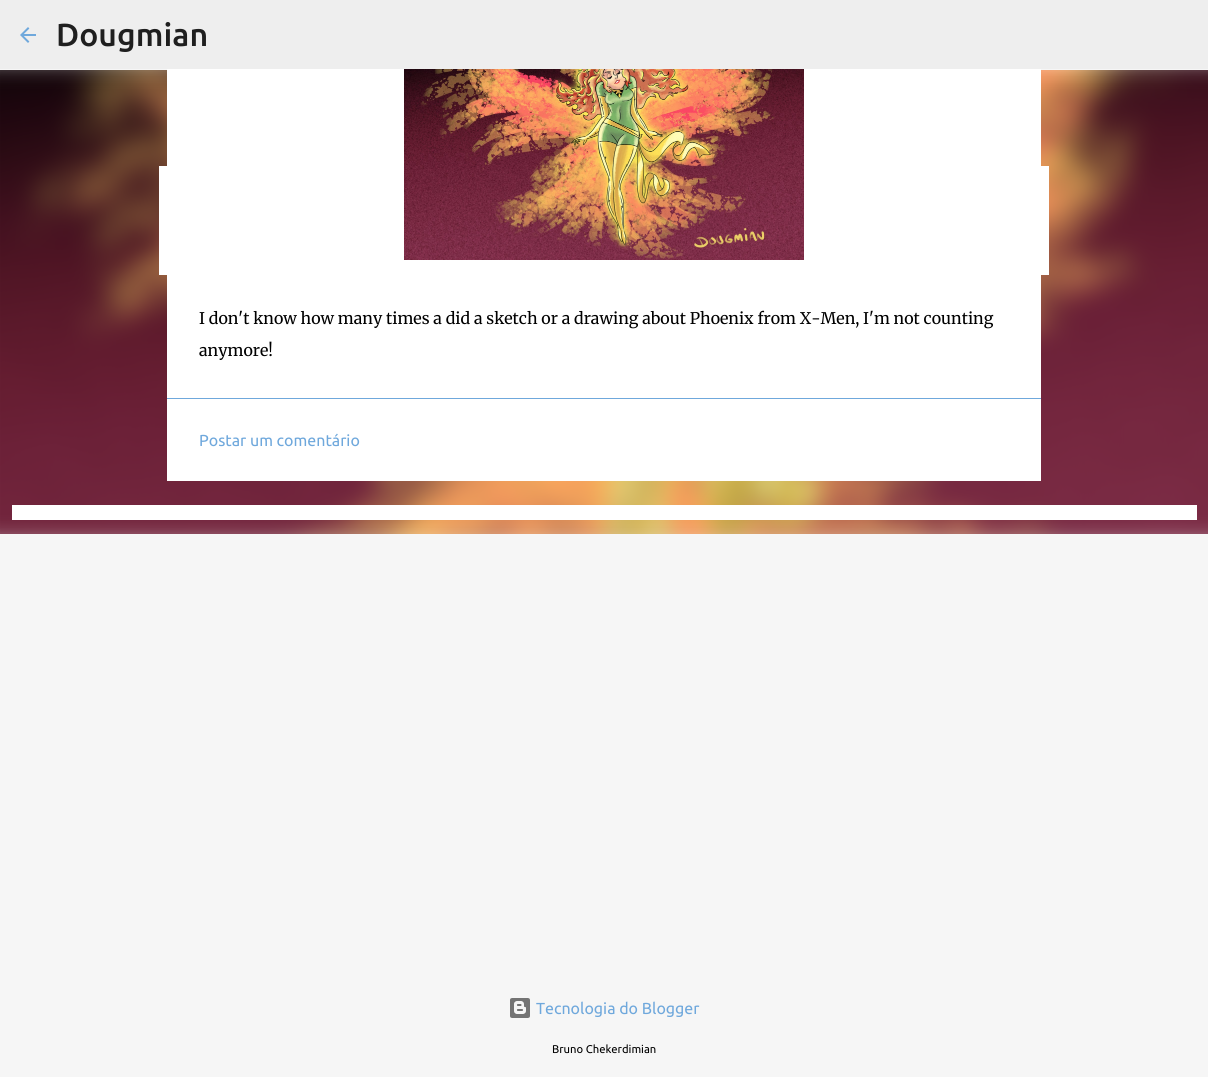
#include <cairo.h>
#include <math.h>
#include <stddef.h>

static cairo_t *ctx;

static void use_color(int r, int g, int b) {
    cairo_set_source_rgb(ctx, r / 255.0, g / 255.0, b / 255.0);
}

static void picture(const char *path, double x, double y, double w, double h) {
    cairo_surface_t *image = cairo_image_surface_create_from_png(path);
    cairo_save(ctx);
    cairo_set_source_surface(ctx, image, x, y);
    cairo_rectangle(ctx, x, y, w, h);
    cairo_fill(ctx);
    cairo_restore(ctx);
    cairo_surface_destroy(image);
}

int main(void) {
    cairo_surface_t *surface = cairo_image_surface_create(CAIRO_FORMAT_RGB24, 1208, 1077);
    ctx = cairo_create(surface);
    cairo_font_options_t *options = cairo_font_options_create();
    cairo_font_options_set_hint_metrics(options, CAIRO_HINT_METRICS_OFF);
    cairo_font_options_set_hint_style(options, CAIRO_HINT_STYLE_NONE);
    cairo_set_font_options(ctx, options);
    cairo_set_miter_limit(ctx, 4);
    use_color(246, 246, 246);
    cairo_paint(ctx);
    use_color(238, 238, 238);
    cairo_rectangle(ctx, 0, 0, 1208, 69);
    cairo_fill(ctx);
    picture("img1.png", 20, 27, 16, 16);
    cairo_select_font_face(ctx, "Ubuntu Medium", CAIRO_FONT_SLANT_NORMAL, CAIRO_FONT_WEIGHT_NORMAL);
    cairo_set_font_size(ctx, 32);
    use_color(31, 31, 31);
    cairo_move_to(ctx, 56, 46);
    cairo_show_text(ctx, "Dougmian");
    picture("img3.png", 0, 70, 1208, 464);
    use_color(255, 255, 255);
    cairo_rectangle(ctx, 159, 166, 890, 109);
    cairo_fill(ctx);
    cairo_rectangle(ctx, 167, 69, 874, 329);
    cairo_fill(ctx);
    picture("img2.png", 404, 69, 400, 191);
    cairo_select_font_face(ctx, "Merriweather", CAIRO_FONT_SLANT_NORMAL, CAIRO_FONT_WEIGHT_NORMAL);
    cairo_set_font_size(ctx, 16);
    use_color(0, 0, 0);
    cairo_move_to(ctx, 199, 324);
    cairo_show_text(ctx, "I don't know how many times a did a sketch or a drawing about Phoenix from X-Men, I'm not counting");
    cairo_move_to(ctx, 199, 356);
    cairo_show_text(ctx, "anymore!");
    use_color(255, 255, 255);
    cairo_rectangle(ctx, 167, 399, 874, 82);
    cairo_fill(ctx);
    use_color(111, 168, 220);
    cairo_rectangle(ctx, 167, 398, 874, 1);
    cairo_fill(ctx);
    cairo_select_font_face(ctx, "Ubuntu", CAIRO_FONT_SLANT_NORMAL, CAIRO_FONT_WEIGHT_NORMAL);
    cairo_move_to(ctx, 199, 446);
    cairo_show_text(ctx, "Postar um comentário");
    use_color(255, 255, 255);
    cairo_rectangle(ctx, 12, 505, 1185, 15);
    cairo_fill(ctx);
    picture("img4.png", 510, 998, 20, 20);
    use_color(111, 168, 220);
    cairo_move_to(ctx, 536, 1014);
    cairo_show_text(ctx, "Tecnologia do Blogger");
    cairo_set_font_size(ctx, 11.25);
    use_color(0, 0, 0);
    cairo_move_to(ctx, 552, 1053);
    cairo_show_text(ctx, "Bruno Chekerdimian");
    cairo_surface_write_to_png(surface, "result.png");
    cairo_font_options_destroy(options);
    cairo_destroy(ctx);
    cairo_surface_destroy(surface);
    return 0;
}
